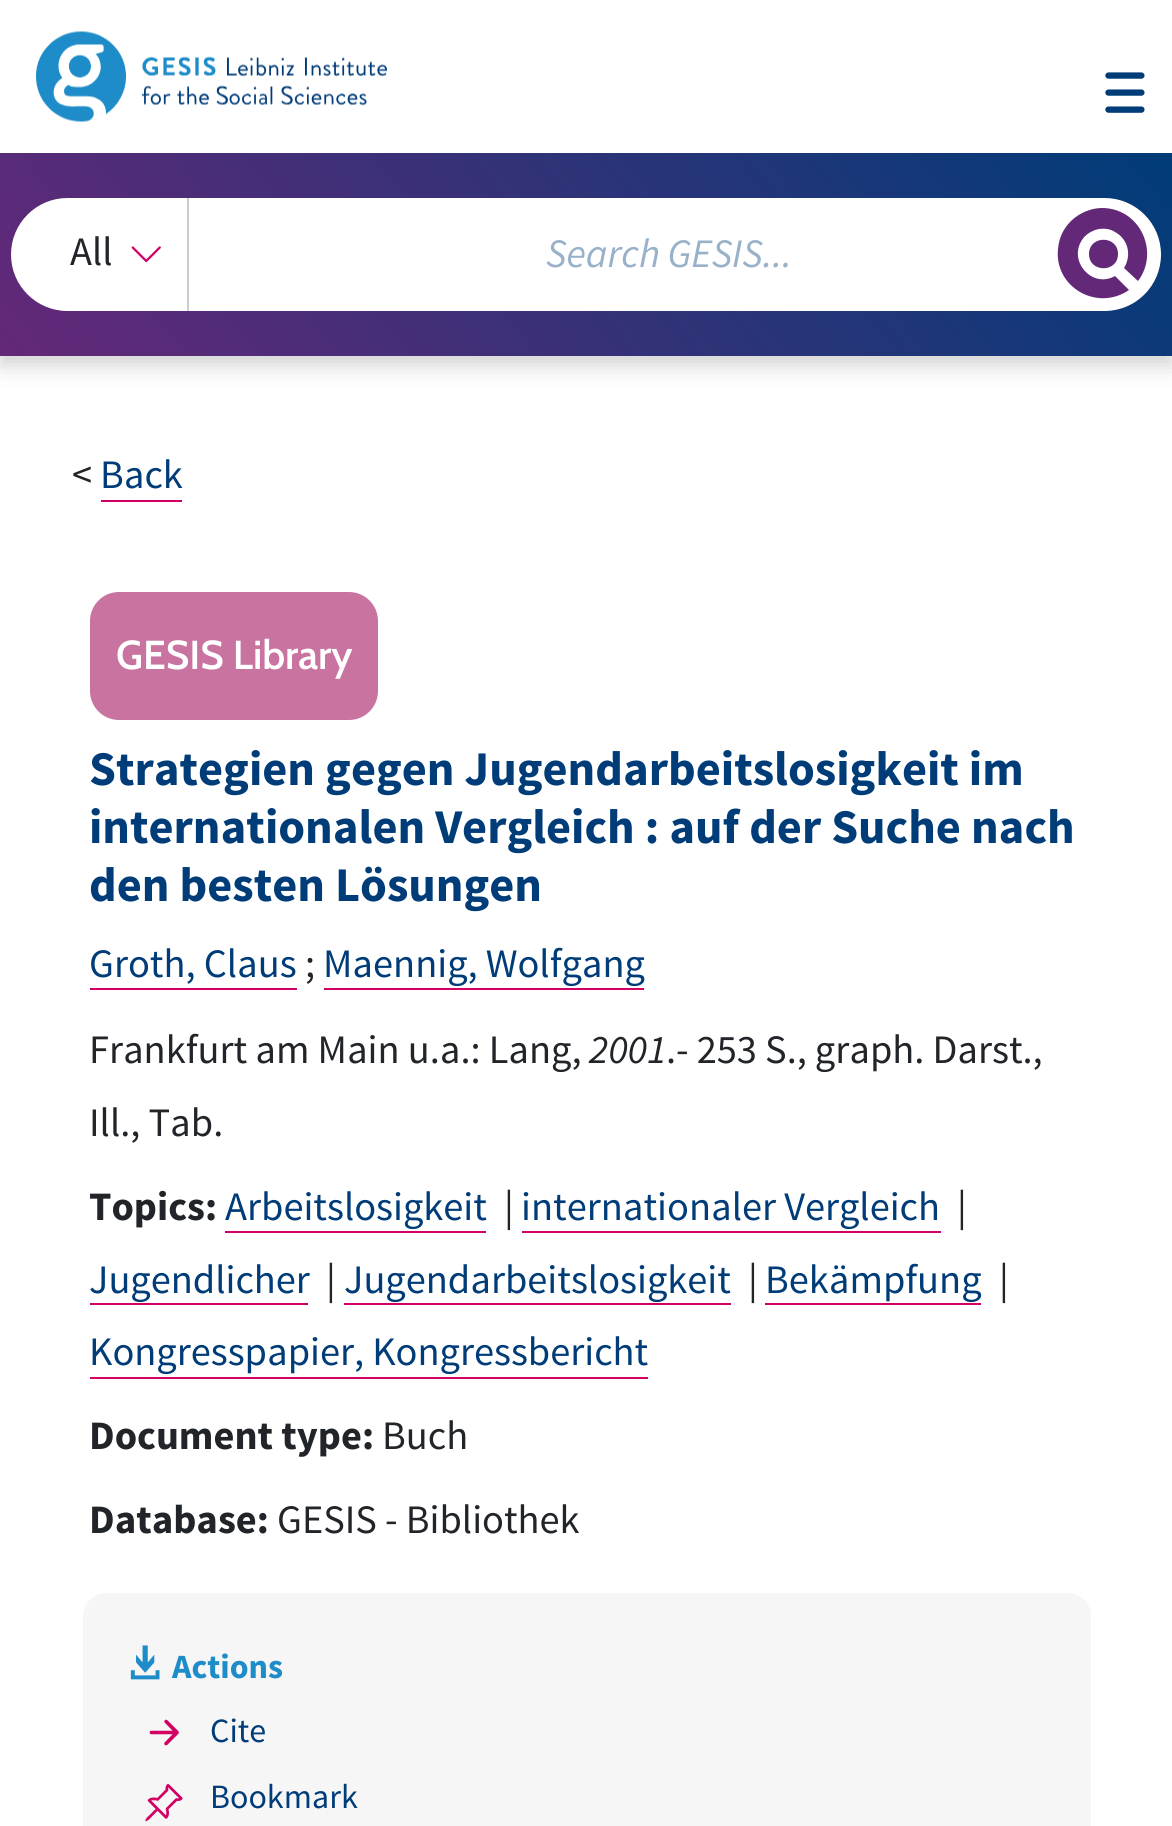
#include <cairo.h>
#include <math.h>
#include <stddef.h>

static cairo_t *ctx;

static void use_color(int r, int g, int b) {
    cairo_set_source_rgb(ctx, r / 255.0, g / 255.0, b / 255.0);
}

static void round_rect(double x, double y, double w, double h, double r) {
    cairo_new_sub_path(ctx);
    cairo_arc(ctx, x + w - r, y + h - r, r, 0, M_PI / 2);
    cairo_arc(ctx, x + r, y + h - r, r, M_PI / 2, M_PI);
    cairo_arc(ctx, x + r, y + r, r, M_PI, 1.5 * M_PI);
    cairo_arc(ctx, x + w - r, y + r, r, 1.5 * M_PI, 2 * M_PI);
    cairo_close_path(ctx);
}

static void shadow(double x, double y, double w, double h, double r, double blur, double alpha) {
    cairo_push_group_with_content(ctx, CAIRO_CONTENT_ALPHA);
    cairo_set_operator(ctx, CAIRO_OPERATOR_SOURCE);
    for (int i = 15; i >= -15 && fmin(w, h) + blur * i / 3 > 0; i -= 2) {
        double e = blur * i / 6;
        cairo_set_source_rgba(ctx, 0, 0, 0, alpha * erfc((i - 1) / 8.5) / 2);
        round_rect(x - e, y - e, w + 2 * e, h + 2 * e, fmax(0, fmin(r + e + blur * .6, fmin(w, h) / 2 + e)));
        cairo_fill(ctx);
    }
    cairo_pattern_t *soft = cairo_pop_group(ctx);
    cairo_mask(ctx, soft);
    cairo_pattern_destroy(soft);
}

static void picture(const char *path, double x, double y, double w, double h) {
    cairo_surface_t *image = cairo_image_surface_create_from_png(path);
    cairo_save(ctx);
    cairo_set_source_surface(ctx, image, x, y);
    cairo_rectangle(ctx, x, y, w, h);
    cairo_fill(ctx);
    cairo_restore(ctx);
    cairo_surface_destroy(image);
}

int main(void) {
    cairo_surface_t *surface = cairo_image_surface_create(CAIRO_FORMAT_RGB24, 1172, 1826);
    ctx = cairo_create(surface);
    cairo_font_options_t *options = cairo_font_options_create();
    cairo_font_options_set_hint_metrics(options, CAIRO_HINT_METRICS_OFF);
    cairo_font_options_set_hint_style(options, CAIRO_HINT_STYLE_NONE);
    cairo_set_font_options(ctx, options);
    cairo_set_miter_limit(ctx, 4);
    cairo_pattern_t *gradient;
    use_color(255, 255, 255);
    cairo_paint(ctx);
    use_color(0, 0, 0);
    shadow(0, 9, 1172, 356, 0, 11, 0.18);
    use_color(255, 255, 255);
    cairo_rectangle(ctx, 0, 0, 1172, 153);
    cairo_fill(ctx);
    picture("img1.png", 36, 31, 351, 91);
    picture("img2.png", 1105, 72, 40, 41);
    gradient = cairo_pattern_create_linear(192, 585, 980, -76);
    cairo_pattern_add_color_stop_rgba(gradient, 0, 0.392, 0.157, 0.471, 1);
    cairo_pattern_add_color_stop_rgba(gradient, 1, 0, 0.235, 0.471, 1);
    cairo_set_source(ctx, gradient);
    cairo_pattern_destroy(gradient);
    cairo_rectangle(ctx, 0, 153, 1172, 203);
    cairo_fill(ctx);
    use_color(255, 255, 255);
    round_rect(11, 198, 1150, 113, 56.5);
    cairo_fill(ctx);
    picture("img3.png", 131, 246, 30, 17);
    use_color(204, 204, 204);
    cairo_rectangle(ctx, 187, 198, 2, 113);
    cairo_fill(ctx);
    cairo_select_font_face(ctx, "Source Sans Pro", CAIRO_FONT_SLANT_NORMAL, CAIRO_FONT_WEIGHT_NORMAL);
    cairo_set_font_size(ctx, 40.4);
    use_color(33, 37, 41);
    cairo_move_to(ctx, 70, 265);
    cairo_show_text(ctx, "All");
    cairo_select_font_face(ctx, "Source Sans Pro", CAIRO_FONT_SLANT_ITALIC, CAIRO_FONT_WEIGHT_NORMAL);
    use_color(153, 177, 201);
    cairo_move_to(ctx, 546, 267);
    cairo_show_text(ctx, "Search GESIS...");
    use_color(100, 40, 120);
    cairo_new_path(ctx);
    cairo_move_to(ctx, 1118, 254);
    cairo_curve_to(ctx, 1118, 273, 1089, 273, 1089, 254);
    cairo_curve_to(ctx, 1089, 235, 1118, 235, 1118, 254);
    cairo_close_path(ctx);
    cairo_move_to(ctx, 1102, 208);
    cairo_curve_to(ctx, 1091, 208, 1079, 213, 1071, 221);
    cairo_curve_to(ctx, 1063, 229, 1059, 238, 1058, 249);
    cairo_curve_to(ctx, 1054, 287, 1097, 312, 1129, 290);
    cairo_line_to(ctx, 1115, 276);
    cairo_curve_to(ctx, 1092, 289, 1068, 261, 1082, 240);
    cairo_curve_to(ctx, 1085, 235, 1090, 232, 1095, 230);
    cairo_curve_to(ctx, 1101, 228, 1109, 228, 1115, 232);
    cairo_curve_to(ctx, 1128, 239, 1132, 255, 1124, 268);
    cairo_line_to(ctx, 1138, 281);
    cairo_curve_to(ctx, 1160, 252, 1140, 208, 1102, 208);
    cairo_close_path(ctx);
    cairo_move_to(ctx, 1138, 281);
    cairo_line_to(ctx, 1124, 268);
    cairo_close_path(ctx);
    cairo_fill(ctx);
    cairo_select_font_face(ctx, "Source Sans Pro", CAIRO_FONT_SLANT_NORMAL, CAIRO_FONT_WEIGHT_NORMAL);
    use_color(33, 37, 41);
    cairo_move_to(ctx, 72, 488);
    cairo_show_text(ctx, "<");
    use_color(0, 60, 120);
    cairo_move_to(ctx, 100, 488);
    cairo_show_text(ctx, "Back");
    use_color(210, 0, 100);
    cairo_rectangle(ctx, 101, 500, 81, 2);
    cairo_fill(ctx);
    use_color(200, 115, 160);
    round_rect(92.5, 594.5, 283, 123, 26.5);
    cairo_fill_preserve(ctx);
    cairo_set_line_width(ctx, 5);
    cairo_stroke(ctx);
    cairo_select_font_face(ctx, "Cabin SemiBold", CAIRO_FONT_SLANT_NORMAL, CAIRO_FONT_WEIGHT_NORMAL);
    use_color(255, 255, 255);
    cairo_move_to(ctx, 116, 669);
    cairo_show_text(ctx, "GESIS Library");
    cairo_select_font_face(ctx, "Source Sans Pro", CAIRO_FONT_SLANT_NORMAL, CAIRO_FONT_WEIGHT_BOLD);
    cairo_set_font_size(ctx, 48.4);
    use_color(0, 60, 120);
    cairo_move_to(ctx, 89, 785);
    cairo_show_text(ctx, "Strategien gegen Jugendarbeitslosigkeit im");
    cairo_move_to(ctx, 89, 843);
    cairo_show_text(ctx, "internationalen Vergleich : auf der Suche nach");
    cairo_move_to(ctx, 89, 901);
    cairo_show_text(ctx, "den besten Lösungen");
    cairo_select_font_face(ctx, "Source Sans Pro", CAIRO_FONT_SLANT_NORMAL, CAIRO_FONT_WEIGHT_NORMAL);
    cairo_set_font_size(ctx, 40.4);
    cairo_move_to(ctx, 89, 977);
    cairo_show_text(ctx, "Groth, Claus");
    use_color(210, 0, 100);
    cairo_rectangle(ctx, 90, 988, 207, 2);
    cairo_fill(ctx);
    use_color(33, 37, 41);
    cairo_move_to(ctx, 305, 977);
    cairo_show_text(ctx, ";");
    use_color(0, 60, 120);
    cairo_move_to(ctx, 323, 977);
    cairo_show_text(ctx, "Maennig, Wolfgang");
    use_color(210, 0, 100);
    cairo_rectangle(ctx, 324, 988, 320, 2);
    cairo_fill(ctx);
    use_color(33, 37, 41);
    cairo_move_to(ctx, 89, 1063);
    cairo_show_text(ctx, "Frankfurt am Main u.a.: Lang,");
    cairo_select_font_face(ctx, "Source Sans Pro", CAIRO_FONT_SLANT_ITALIC, CAIRO_FONT_WEIGHT_NORMAL);
    cairo_move_to(ctx, 589, 1063);
    cairo_show_text(ctx, "2001");
    cairo_select_font_face(ctx, "Source Sans Pro", CAIRO_FONT_SLANT_NORMAL, CAIRO_FONT_WEIGHT_NORMAL);
    cairo_move_to(ctx, 666, 1063);
    cairo_show_text(ctx, ".- 253 S., graph. Darst.,");
    cairo_move_to(ctx, 89, 1136);
    cairo_show_text(ctx, "Ill., Tab.");
    cairo_select_font_face(ctx, "Source Sans Pro", CAIRO_FONT_SLANT_NORMAL, CAIRO_FONT_WEIGHT_BOLD);
    cairo_move_to(ctx, 89, 1220);
    cairo_show_text(ctx, "Topics:");
    cairo_select_font_face(ctx, "Source Sans Pro", CAIRO_FONT_SLANT_NORMAL, CAIRO_FONT_WEIGHT_NORMAL);
    use_color(0, 60, 120);
    cairo_move_to(ctx, 225, 1220);
    cairo_show_text(ctx, "Arbeitslosigkeit");
    use_color(210, 0, 100);
    cairo_rectangle(ctx, 225, 1231, 261, 2);
    cairo_fill(ctx);
    use_color(33, 37, 41);
    cairo_move_to(ctx, 504, 1220);
    cairo_show_text(ctx, "|");
    use_color(0, 60, 120);
    cairo_move_to(ctx, 521, 1220);
    cairo_show_text(ctx, "internationaler Vergleich");
    use_color(210, 0, 100);
    cairo_rectangle(ctx, 522, 1231, 419, 2);
    cairo_fill(ctx);
    use_color(33, 37, 41);
    cairo_move_to(ctx, 957, 1220);
    cairo_show_text(ctx, "|");
    use_color(0, 60, 120);
    cairo_move_to(ctx, 89, 1293);
    cairo_show_text(ctx, "Jugendlicher");
    use_color(210, 0, 100);
    cairo_rectangle(ctx, 90, 1303, 218, 2);
    cairo_fill(ctx);
    use_color(33, 37, 41);
    cairo_move_to(ctx, 326, 1293);
    cairo_show_text(ctx, "|");
    use_color(0, 60, 120);
    cairo_move_to(ctx, 344, 1293);
    cairo_show_text(ctx, "Jugendarbeitslosigkeit");
    use_color(210, 0, 100);
    cairo_rectangle(ctx, 344, 1303, 387, 2);
    cairo_fill(ctx);
    use_color(33, 37, 41);
    cairo_move_to(ctx, 748, 1293);
    cairo_show_text(ctx, "|");
    use_color(0, 60, 120);
    cairo_move_to(ctx, 765, 1293);
    cairo_show_text(ctx, "Bekämpfung");
    use_color(210, 0, 100);
    cairo_rectangle(ctx, 765, 1303, 216, 2);
    cairo_fill(ctx);
    use_color(33, 37, 41);
    cairo_move_to(ctx, 999, 1293);
    cairo_show_text(ctx, "|");
    use_color(0, 60, 120);
    cairo_move_to(ctx, 89, 1365);
    cairo_show_text(ctx, "Kongresspapier, Kongressbericht");
    use_color(210, 0, 100);
    cairo_rectangle(ctx, 90, 1377, 558, 2);
    cairo_fill(ctx);
    cairo_select_font_face(ctx, "Source Sans Pro", CAIRO_FONT_SLANT_NORMAL, CAIRO_FONT_WEIGHT_BOLD);
    use_color(33, 37, 41);
    cairo_move_to(ctx, 89, 1449);
    cairo_show_text(ctx, "Document type:");
    cairo_select_font_face(ctx, "Source Sans Pro", CAIRO_FONT_SLANT_NORMAL, CAIRO_FONT_WEIGHT_NORMAL);
    cairo_move_to(ctx, 382, 1449);
    cairo_show_text(ctx, "Buch");
    cairo_select_font_face(ctx, "Source Sans Pro", CAIRO_FONT_SLANT_NORMAL, CAIRO_FONT_WEIGHT_BOLD);
    cairo_move_to(ctx, 89, 1533);
    cairo_show_text(ctx, "Database:");
    cairo_select_font_face(ctx, "Source Sans Pro", CAIRO_FONT_SLANT_NORMAL, CAIRO_FONT_WEIGHT_NORMAL);
    cairo_move_to(ctx, 277, 1533);
    cairo_show_text(ctx, "GESIS - Bibliothek");
    use_color(246, 246, 246);
    round_rect(83, 1593, 1008, 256, 23);
    cairo_fill(ctx);
    picture("img4.png", 130, 1645, 30, 35);
    cairo_select_font_face(ctx, "Source Sans Pro", CAIRO_FONT_SLANT_NORMAL, CAIRO_FONT_WEIGHT_BOLD);
    cairo_set_font_size(ctx, 34);
    use_color(30, 140, 200);
    cairo_move_to(ctx, 172, 1678);
    cairo_show_text(ctx, "Actions");
    picture("img5.png", 149, 1719, 30, 27);
    cairo_select_font_face(ctx, "Source Sans Pro", CAIRO_FONT_SLANT_NORMAL, CAIRO_FONT_WEIGHT_NORMAL);
    use_color(0, 60, 120);
    cairo_move_to(ctx, 210, 1742);
    cairo_show_text(ctx, "Cite");
    picture("img6.png", 145, 1784, 38, 38);
    cairo_move_to(ctx, 210, 1808);
    cairo_show_text(ctx, "Bookmark");
    cairo_surface_write_to_png(surface, "result.png");
    cairo_font_options_destroy(options);
    cairo_destroy(ctx);
    cairo_surface_destroy(surface);
    return 0;
}
